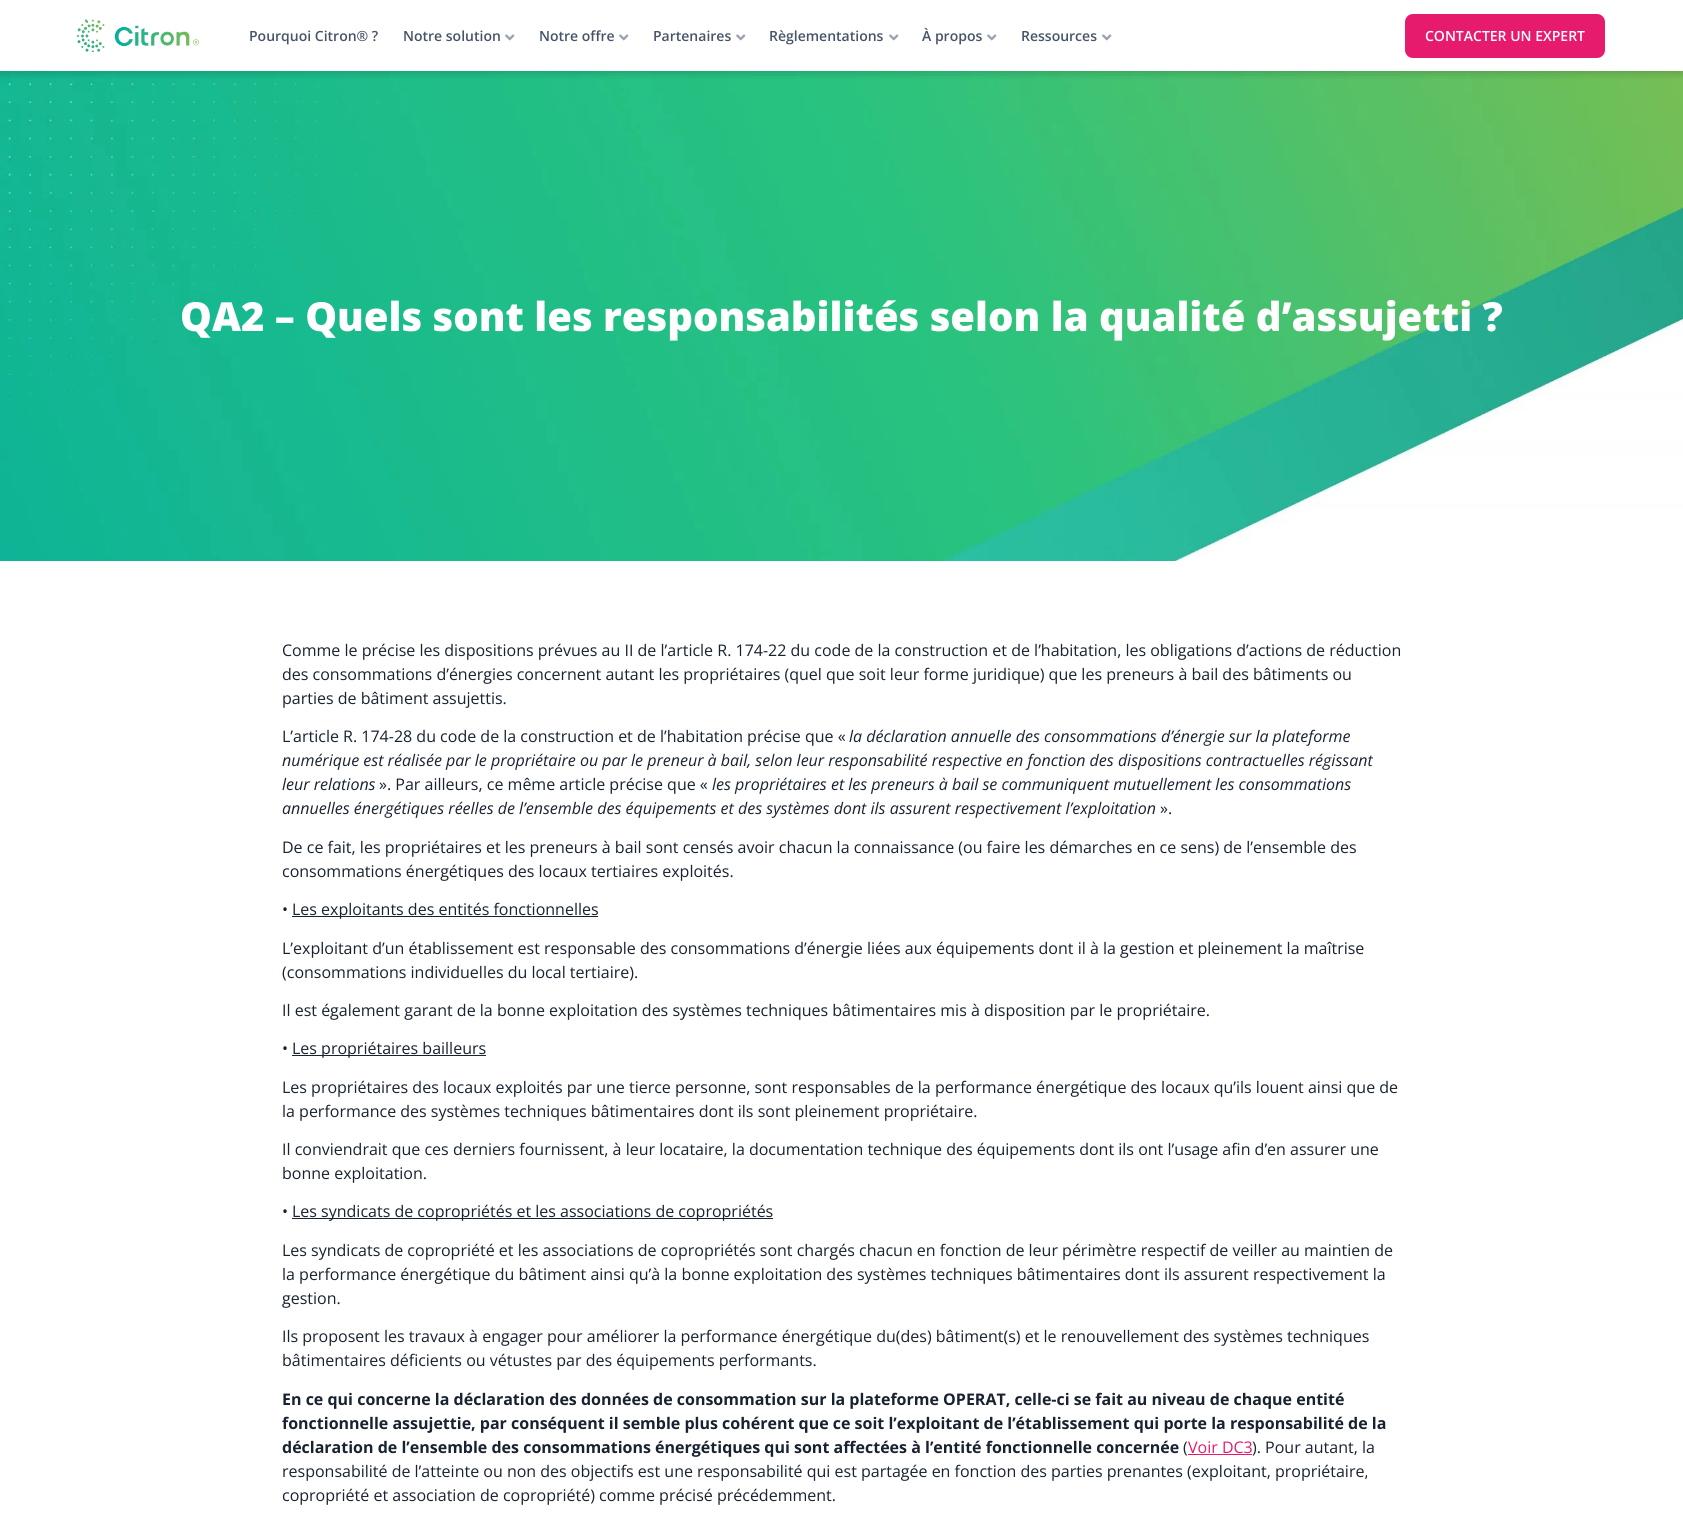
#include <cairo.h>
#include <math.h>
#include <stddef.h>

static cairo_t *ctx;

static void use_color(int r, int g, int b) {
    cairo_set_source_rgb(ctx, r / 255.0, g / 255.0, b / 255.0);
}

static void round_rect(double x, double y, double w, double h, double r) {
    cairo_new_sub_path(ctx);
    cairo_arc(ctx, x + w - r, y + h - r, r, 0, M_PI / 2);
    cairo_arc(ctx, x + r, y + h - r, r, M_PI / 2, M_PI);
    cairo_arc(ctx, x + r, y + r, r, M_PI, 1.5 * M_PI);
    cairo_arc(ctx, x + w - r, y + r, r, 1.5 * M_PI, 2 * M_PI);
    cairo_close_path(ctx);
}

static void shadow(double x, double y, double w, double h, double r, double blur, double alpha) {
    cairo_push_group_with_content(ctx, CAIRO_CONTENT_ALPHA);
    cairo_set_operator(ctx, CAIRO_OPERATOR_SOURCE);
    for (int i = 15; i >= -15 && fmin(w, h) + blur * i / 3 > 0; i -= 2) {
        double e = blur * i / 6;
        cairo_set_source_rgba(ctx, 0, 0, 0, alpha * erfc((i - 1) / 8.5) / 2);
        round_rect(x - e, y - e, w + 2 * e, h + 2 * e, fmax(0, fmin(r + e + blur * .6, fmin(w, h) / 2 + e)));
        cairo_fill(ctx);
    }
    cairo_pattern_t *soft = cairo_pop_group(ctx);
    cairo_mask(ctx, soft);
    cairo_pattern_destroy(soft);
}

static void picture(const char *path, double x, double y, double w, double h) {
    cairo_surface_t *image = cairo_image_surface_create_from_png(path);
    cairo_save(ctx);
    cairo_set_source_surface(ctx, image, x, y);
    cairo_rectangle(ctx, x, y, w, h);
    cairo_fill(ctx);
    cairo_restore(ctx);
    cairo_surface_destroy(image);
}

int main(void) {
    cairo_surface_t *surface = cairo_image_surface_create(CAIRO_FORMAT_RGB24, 1683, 1528);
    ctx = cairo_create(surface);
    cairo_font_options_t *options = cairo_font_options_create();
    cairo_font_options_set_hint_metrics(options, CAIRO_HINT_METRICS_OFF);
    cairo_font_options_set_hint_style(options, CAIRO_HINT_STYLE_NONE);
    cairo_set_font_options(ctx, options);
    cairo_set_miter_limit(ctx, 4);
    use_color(255, 255, 255);
    cairo_paint(ctx);
    picture("img3.png", 0, 71, 1683, 490);
    cairo_save(ctx);
    cairo_rectangle(ctx, 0, 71, 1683, 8);
    cairo_clip(ctx);
    use_color(0, 0, 0);
    shadow(0, 1, 1683, 71, 0, 5, 0.22);
    cairo_restore(ctx);
    picture("img1.png", 77, 19, 122, 33);
    cairo_select_font_face(ctx, "Open Sans SemiBold", CAIRO_FONT_SLANT_NORMAL, CAIRO_FONT_WEIGHT_NORMAL);
    cairo_set_font_size(ctx, 14);
    use_color(71, 84, 103);
    cairo_move_to(ctx, 249, 41);
    cairo_show_text(ctx, "Pourquoi Citron® ?");
    cairo_move_to(ctx, 403, 41);
    cairo_show_text(ctx, "Notre solution");
    picture("img2.png", 505, 34, 10, 7);
    cairo_move_to(ctx, 539, 41);
    cairo_show_text(ctx, "Notre offre");
    picture("img2.png", 619, 34, 10, 7);
    cairo_move_to(ctx, 653, 41);
    cairo_show_text(ctx, "Partenaires");
    picture("img2.png", 736, 34, 10, 7);
    cairo_move_to(ctx, 769, 41);
    cairo_show_text(ctx, "Règlementations");
    picture("img2.png", 889, 34, 10, 7);
    cairo_move_to(ctx, 922, 41);
    cairo_show_text(ctx, "À propos");
    picture("img2.png", 987, 34, 10, 7);
    cairo_move_to(ctx, 1021, 41);
    cairo_show_text(ctx, "Ressources");
    picture("img2.png", 1102, 34, 10, 7);
    use_color(231, 27, 109);
    round_rect(1405, 14, 200, 44, 8);
    cairo_fill(ctx);
    use_color(255, 255, 255);
    cairo_move_to(ctx, 1425, 41);
    cairo_show_text(ctx, "CONTACTER UN EXPERT");
    cairo_select_font_face(ctx, "Open Sans ExtraBold", CAIRO_FONT_SLANT_NORMAL, CAIRO_FONT_WEIGHT_NORMAL);
    cairo_set_font_size(ctx, 40);
    cairo_move_to(ctx, 180, 331);
    cairo_show_text(ctx, "QA2 – Quels sont les responsabilités selon la qualité d’assujetti ?");
    cairo_select_font_face(ctx, "Open Sans", CAIRO_FONT_SLANT_NORMAL, CAIRO_FONT_WEIGHT_NORMAL);
    cairo_set_font_size(ctx, 16);
    use_color(24, 34, 48);
    cairo_move_to(ctx, 282, 656);
    cairo_show_text(ctx, "Comme le précise les dispositions prévues au II de l’article R. 174-22 du code de la construction et de l’habitation, les obligations d’actions de réduction");
    cairo_move_to(ctx, 282, 680);
    cairo_show_text(ctx, "des consommations d’énergies concernent autant les propriétaires (quel que soit leur forme juridique) que les preneurs à bail des bâtiments ou");
    cairo_move_to(ctx, 282, 704);
    cairo_show_text(ctx, "parties de bâtiment assujettis.");
    cairo_move_to(ctx, 282, 742);
    cairo_show_text(ctx, "L’article R. 174-28 du code de la construction et de l’habitation précise que «");
    cairo_select_font_face(ctx, "Open Sans", CAIRO_FONT_SLANT_ITALIC, CAIRO_FONT_WEIGHT_NORMAL);
    cairo_move_to(ctx, 849, 742);
    cairo_show_text(ctx, "la déclaration annuelle des consommations d’énergie sur la plateforme");
    cairo_move_to(ctx, 282, 766);
    cairo_show_text(ctx, "numérique est réalisée par le propriétaire ou par le preneur à bail, selon leur responsabilité respective en fonction des dispositions contractuelles régissant");
    cairo_move_to(ctx, 282, 790);
    cairo_show_text(ctx, "leur relations");
    cairo_select_font_face(ctx, "Open Sans", CAIRO_FONT_SLANT_NORMAL, CAIRO_FONT_WEIGHT_NORMAL);
    cairo_move_to(ctx, 379, 790);
    cairo_show_text(ctx, "». Par ailleurs, ce même article précise que «");
    cairo_select_font_face(ctx, "Open Sans", CAIRO_FONT_SLANT_ITALIC, CAIRO_FONT_WEIGHT_NORMAL);
    cairo_move_to(ctx, 712, 790);
    cairo_show_text(ctx, "les propriétaires et les preneurs à bail se communiquent mutuellement les consommations");
    cairo_move_to(ctx, 282, 814);
    cairo_show_text(ctx, "annuelles énergétiques réelles de l’ensemble des équipements et des systèmes dont ils assurent respectivement l’exploitation");
    cairo_select_font_face(ctx, "Open Sans", CAIRO_FONT_SLANT_NORMAL, CAIRO_FONT_WEIGHT_NORMAL);
    cairo_move_to(ctx, 1160, 814);
    cairo_show_text(ctx, "».");
    cairo_move_to(ctx, 282, 853);
    cairo_show_text(ctx, "De ce fait, les propriétaires et les preneurs à bail sont censés avoir chacun la connaissance (ou faire les démarches en ce sens) de l’ensemble des");
    cairo_move_to(ctx, 282, 877);
    cairo_show_text(ctx, "consommations énergétiques des locaux tertiaires exploités.");
    cairo_move_to(ctx, 282, 915);
    cairo_show_text(ctx, "•");
    cairo_rectangle(ctx, 292, 916, 306, 1);
    cairo_fill(ctx);
    cairo_move_to(ctx, 292, 915);
    cairo_show_text(ctx, "Les exploitants des entités fonctionnelles");
    cairo_move_to(ctx, 282, 954);
    cairo_show_text(ctx, "L’exploitant d’un établissement est responsable des consommations d’énergie liées aux équipements dont il à la gestion et pleinement la maîtrise");
    cairo_move_to(ctx, 282, 978);
    cairo_show_text(ctx, "(consommations individuelles du local tertiaire).");
    cairo_move_to(ctx, 282, 1016);
    cairo_show_text(ctx, "Il est également garant de la bonne exploitation des systèmes techniques bâtimentaires mis à disposition par le propriétaire.");
    cairo_move_to(ctx, 282, 1054);
    cairo_show_text(ctx, "•");
    cairo_rectangle(ctx, 292, 1055, 194, 1);
    cairo_fill(ctx);
    cairo_move_to(ctx, 292, 1054);
    cairo_show_text(ctx, "Les propriétaires bailleurs");
    cairo_move_to(ctx, 282, 1093);
    cairo_show_text(ctx, "Les propriétaires des locaux exploités par une tierce personne, sont responsables de la performance énergétique des locaux qu’ils louent ainsi que de");
    cairo_move_to(ctx, 282, 1117);
    cairo_show_text(ctx, "la performance des systèmes techniques bâtimentaires dont ils sont pleinement propriétaire.");
    cairo_move_to(ctx, 282, 1155);
    cairo_show_text(ctx, "Il conviendrait que ces derniers fournissent, à leur locataire, la documentation technique des équipements dont ils ont l’usage afin d’en assurer une");
    cairo_move_to(ctx, 282, 1179);
    cairo_show_text(ctx, "bonne exploitation.");
    cairo_move_to(ctx, 282, 1217);
    cairo_show_text(ctx, "•");
    cairo_rectangle(ctx, 292, 1218, 481, 1);
    cairo_fill(ctx);
    cairo_move_to(ctx, 292, 1217);
    cairo_show_text(ctx, "Les syndicats de copropriétés et les associations de copropriétés");
    cairo_move_to(ctx, 282, 1256);
    cairo_show_text(ctx, "Les syndicats de copropriété et les associations de copropriétés sont chargés chacun en fonction de leur périmètre respectif de veiller au maintien de");
    cairo_move_to(ctx, 282, 1280);
    cairo_show_text(ctx, "la performance énergétique du bâtiment ainsi qu’à la bonne exploitation des systèmes techniques bâtimentaires dont ils assurent respectivement la");
    cairo_move_to(ctx, 282, 1304);
    cairo_show_text(ctx, "gestion.");
    cairo_move_to(ctx, 282, 1342);
    cairo_show_text(ctx, "Ils proposent les travaux à engager pour améliorer la performance énergétique du(des) bâtiment(s) et le renouvellement des systèmes techniques");
    cairo_move_to(ctx, 282, 1366);
    cairo_show_text(ctx, "bâtimentaires déficients ou vétustes par des équipements performants.");
    cairo_select_font_face(ctx, "Open Sans", CAIRO_FONT_SLANT_NORMAL, CAIRO_FONT_WEIGHT_BOLD);
    cairo_move_to(ctx, 282, 1405);
    cairo_show_text(ctx, "En ce qui concerne la déclaration des données de consommation sur la plateforme OPERAT, celle-ci se fait au niveau de chaque entité");
    cairo_move_to(ctx, 282, 1429);
    cairo_show_text(ctx, "fonctionnelle assujettie, par conséquent il semble plus cohérent que ce soit l’exploitant de l’établissement qui porte la responsabilité de la");
    cairo_move_to(ctx, 282, 1453);
    cairo_show_text(ctx, "déclaration de l’ensemble des consommations énergétiques qui sont affectées à l’entité fonctionnelle concernée");
    cairo_select_font_face(ctx, "Open Sans", CAIRO_FONT_SLANT_NORMAL, CAIRO_FONT_WEIGHT_NORMAL);
    cairo_move_to(ctx, 1183, 1453);
    cairo_show_text(ctx, "(");
    use_color(231, 27, 109);
    cairo_move_to(ctx, 1188, 1453);
    cairo_show_text(ctx, "Voir DC3");
    cairo_rectangle(ctx, 1188, 1454, 64, 1);
    cairo_fill(ctx);
    use_color(24, 34, 48);
    cairo_move_to(ctx, 1252, 1453);
    cairo_show_text(ctx, "). Pour autant, la");
    cairo_move_to(ctx, 282, 1477);
    cairo_show_text(ctx, "responsabilité de l’atteinte ou non des objectifs est une responsabilité qui est partagée en fonction des parties prenantes (exploitant, propriétaire,");
    cairo_move_to(ctx, 282, 1501);
    cairo_show_text(ctx, "copropriété et association de copropriété) comme précisé précédemment.");
    cairo_surface_write_to_png(surface, "result.png");
    cairo_font_options_destroy(options);
    cairo_destroy(ctx);
    cairo_surface_destroy(surface);
    return 0;
}
